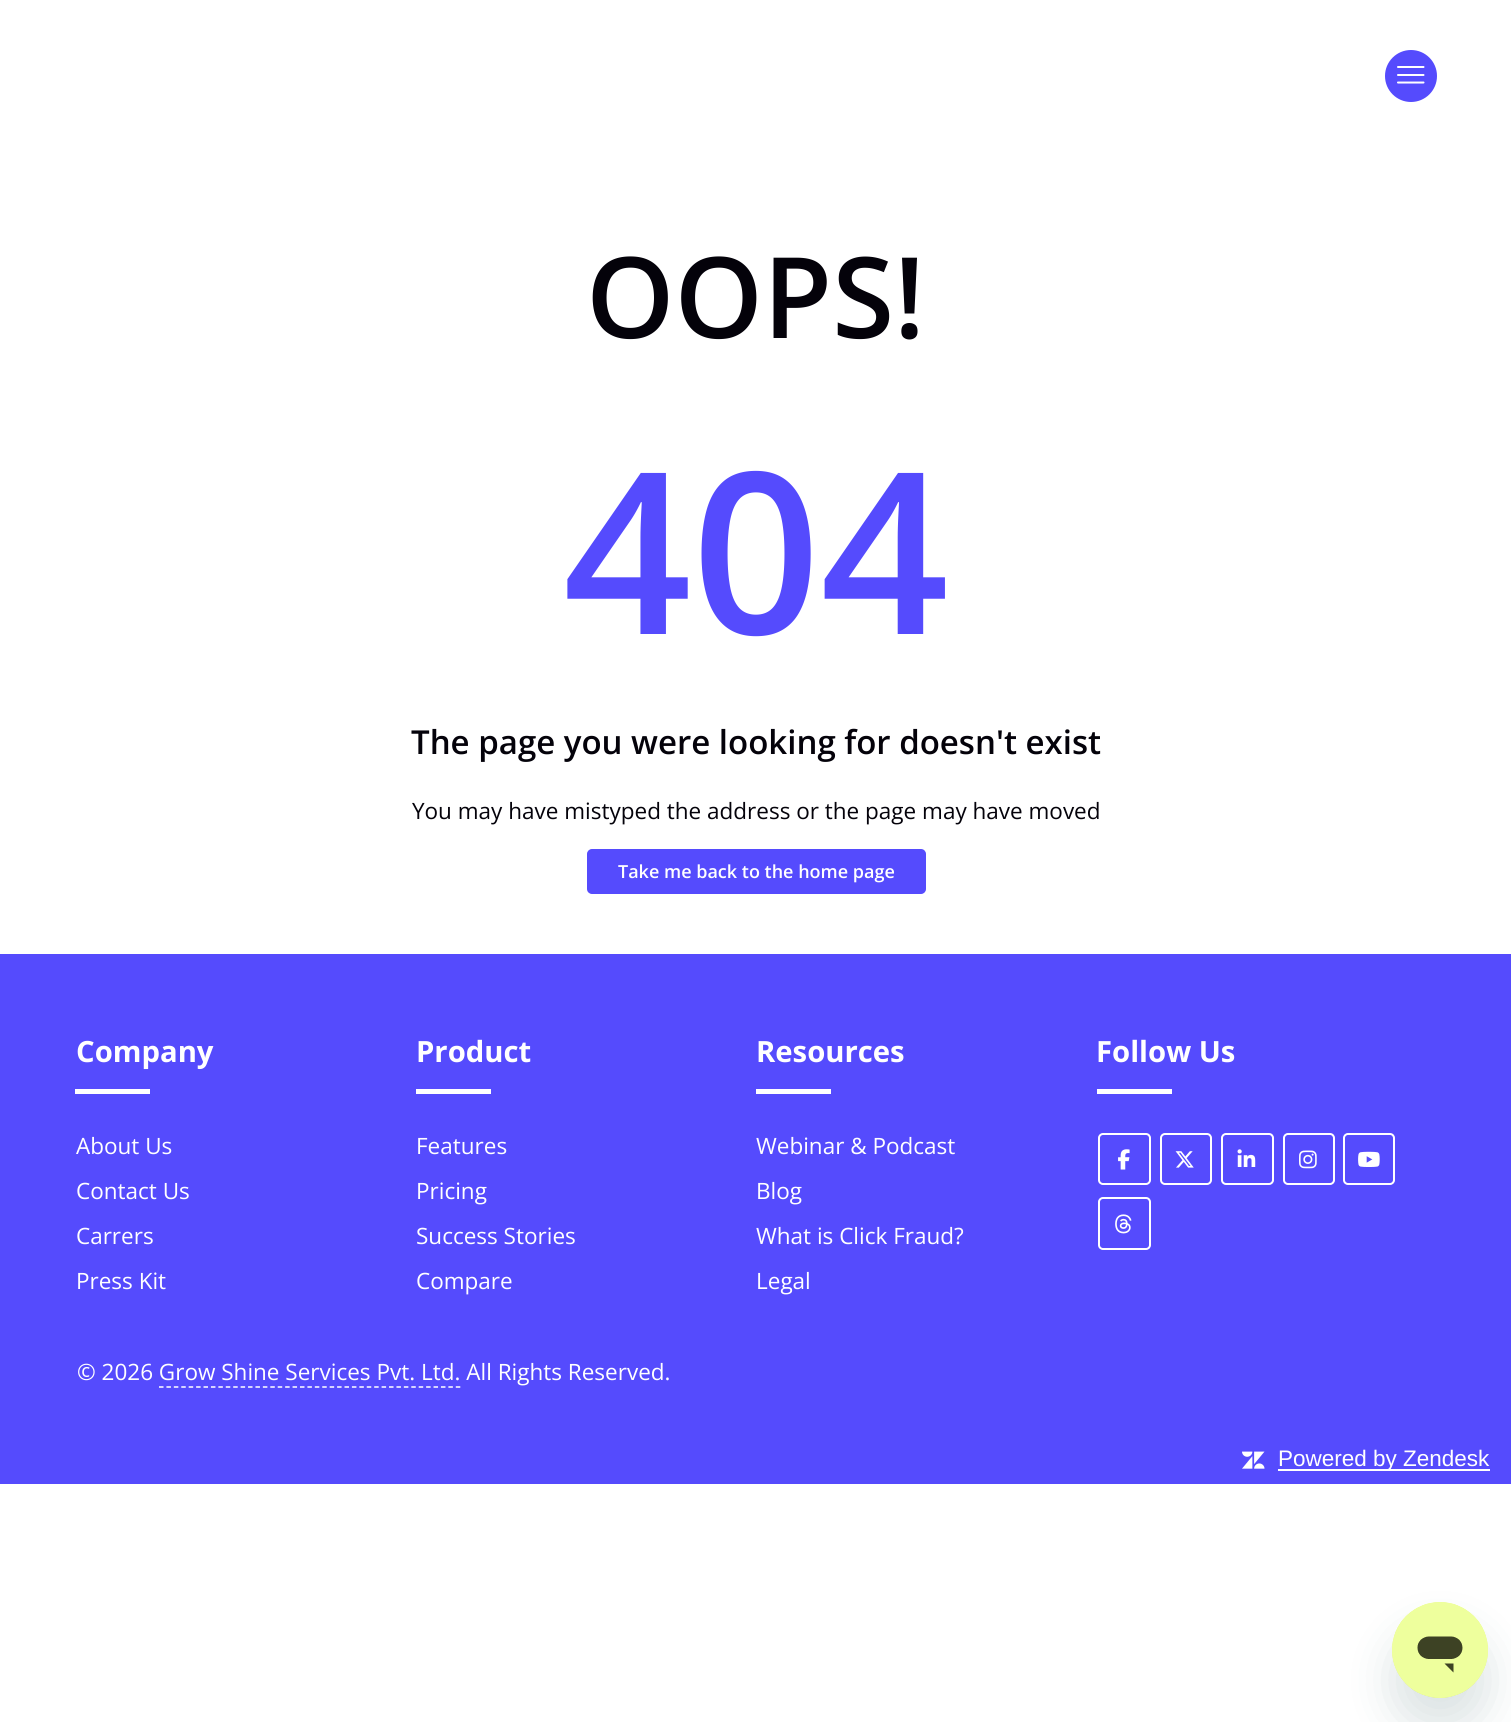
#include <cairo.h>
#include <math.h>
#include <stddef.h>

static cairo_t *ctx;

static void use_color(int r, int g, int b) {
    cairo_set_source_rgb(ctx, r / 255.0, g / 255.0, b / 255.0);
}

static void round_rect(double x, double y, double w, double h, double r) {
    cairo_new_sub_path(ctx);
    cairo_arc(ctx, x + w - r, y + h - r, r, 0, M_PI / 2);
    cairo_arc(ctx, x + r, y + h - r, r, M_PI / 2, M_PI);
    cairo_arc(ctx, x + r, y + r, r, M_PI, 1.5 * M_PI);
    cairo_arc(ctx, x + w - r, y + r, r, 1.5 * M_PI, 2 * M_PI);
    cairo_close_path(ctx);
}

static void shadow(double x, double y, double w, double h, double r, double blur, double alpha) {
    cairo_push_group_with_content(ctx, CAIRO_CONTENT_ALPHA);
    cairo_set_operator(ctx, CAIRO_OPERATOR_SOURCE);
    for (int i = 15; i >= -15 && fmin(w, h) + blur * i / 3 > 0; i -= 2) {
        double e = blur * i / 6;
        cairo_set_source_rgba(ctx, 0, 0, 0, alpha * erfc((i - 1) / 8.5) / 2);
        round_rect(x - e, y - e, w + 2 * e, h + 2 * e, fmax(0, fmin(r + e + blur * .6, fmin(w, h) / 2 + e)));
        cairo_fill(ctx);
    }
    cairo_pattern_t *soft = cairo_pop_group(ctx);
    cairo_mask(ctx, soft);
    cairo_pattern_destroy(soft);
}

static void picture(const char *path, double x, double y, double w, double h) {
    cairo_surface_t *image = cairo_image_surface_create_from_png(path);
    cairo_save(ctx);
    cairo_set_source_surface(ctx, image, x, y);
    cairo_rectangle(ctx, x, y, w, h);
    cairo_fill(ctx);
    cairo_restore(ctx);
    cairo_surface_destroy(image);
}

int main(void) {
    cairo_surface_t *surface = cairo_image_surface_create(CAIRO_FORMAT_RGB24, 1511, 1722);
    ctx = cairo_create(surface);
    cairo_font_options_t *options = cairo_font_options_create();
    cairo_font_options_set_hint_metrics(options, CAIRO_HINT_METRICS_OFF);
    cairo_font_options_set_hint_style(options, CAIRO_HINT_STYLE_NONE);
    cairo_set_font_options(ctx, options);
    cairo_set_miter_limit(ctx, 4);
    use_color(255, 255, 255);
    cairo_paint(ctx);
    use_color(85, 75, 253);
    cairo_arc(ctx, 1411, 76, 26, 0, 2 * M_PI);
    cairo_fill(ctx);
    cairo_new_path(ctx);
    cairo_move_to(ctx, 1398, 67);
    cairo_line_to(ctx, 1423.5, 67);
    cairo_move_to(ctx, 1398, 75);
    cairo_line_to(ctx, 1423.5, 75);
    cairo_move_to(ctx, 1398, 82.5);
    cairo_line_to(ctx, 1423.5, 82.5);
    use_color(255, 255, 255);
    cairo_set_line_cap(ctx, CAIRO_LINE_CAP_ROUND);
    cairo_stroke(ctx);
    cairo_select_font_face(ctx, "Open Sans SemiBold", CAIRO_FONT_SLANT_NORMAL, CAIRO_FONT_WEIGHT_NORMAL);
    cairo_set_font_size(ctx, 112.5);
    use_color(4, 2, 10);
    cairo_move_to(ctx, 586, 338);
    cairo_show_text(ctx, "OOPS!");
    cairo_set_font_size(ctx, 225);
    use_color(85, 75, 253);
    cairo_move_to(ctx, 563, 634);
    cairo_show_text(ctx, "404");
    cairo_set_font_size(ctx, 33);
    use_color(4, 2, 10);
    cairo_move_to(ctx, 411, 754);
    cairo_show_text(ctx, "The page you were looking for doesn't exist");
    cairo_select_font_face(ctx, "Open Sans", CAIRO_FONT_SLANT_NORMAL, CAIRO_FONT_WEIGHT_NORMAL);
    cairo_set_font_size(ctx, 22.5);
    cairo_move_to(ctx, 412, 819);
    cairo_show_text(ctx, "You may have mistyped the address or the page may have moved");
    use_color(85, 75, 253);
    round_rect(588, 850, 337, 43, 4);
    cairo_fill_preserve(ctx);
    cairo_set_line_cap(ctx, CAIRO_LINE_CAP_BUTT);
    cairo_stroke(ctx);
    cairo_select_font_face(ctx, "Open Sans SemiBold", CAIRO_FONT_SLANT_NORMAL, CAIRO_FONT_WEIGHT_NORMAL);
    cairo_set_font_size(ctx, 18);
    use_color(255, 255, 255);
    cairo_move_to(ctx, 618, 878);
    cairo_show_text(ctx, "Take me back to the home page");
    use_color(85, 75, 253);
    cairo_rectangle(ctx, 0, 954, 1511, 530);
    cairo_fill(ctx);
    cairo_select_font_face(ctx, "Open Sans", CAIRO_FONT_SLANT_NORMAL, CAIRO_FONT_WEIGHT_BOLD);
    cairo_set_font_size(ctx, 29.25);
    use_color(255, 255, 255);
    cairo_move_to(ctx, 76, 1062);
    cairo_show_text(ctx, "Company");
    cairo_rectangle(ctx, 75, 1089, 75, 5);
    cairo_fill(ctx);
    cairo_select_font_face(ctx, "Open Sans", CAIRO_FONT_SLANT_NORMAL, CAIRO_FONT_WEIGHT_NORMAL);
    cairo_set_font_size(ctx, 22.5);
    cairo_move_to(ctx, 76, 1154);
    cairo_show_text(ctx, "About Us");
    cairo_move_to(ctx, 76, 1199);
    cairo_show_text(ctx, "Contact Us");
    cairo_move_to(ctx, 76, 1244);
    cairo_show_text(ctx, "Carrers");
    cairo_move_to(ctx, 76, 1289);
    cairo_show_text(ctx, "Press Kit");
    cairo_select_font_face(ctx, "Open Sans", CAIRO_FONT_SLANT_NORMAL, CAIRO_FONT_WEIGHT_BOLD);
    cairo_set_font_size(ctx, 29.25);
    cairo_move_to(ctx, 416, 1062);
    cairo_show_text(ctx, "Product");
    cairo_rectangle(ctx, 416, 1089, 75, 5);
    cairo_fill(ctx);
    cairo_select_font_face(ctx, "Open Sans", CAIRO_FONT_SLANT_NORMAL, CAIRO_FONT_WEIGHT_NORMAL);
    cairo_set_font_size(ctx, 22.5);
    cairo_move_to(ctx, 416, 1154);
    cairo_show_text(ctx, "Features");
    cairo_move_to(ctx, 416, 1199);
    cairo_show_text(ctx, "Pricing");
    cairo_move_to(ctx, 416, 1244);
    cairo_show_text(ctx, "Success Stories");
    cairo_move_to(ctx, 416, 1289);
    cairo_show_text(ctx, "Compare");
    cairo_select_font_face(ctx, "Open Sans", CAIRO_FONT_SLANT_NORMAL, CAIRO_FONT_WEIGHT_BOLD);
    cairo_set_font_size(ctx, 29.25);
    cairo_move_to(ctx, 756, 1062);
    cairo_show_text(ctx, "Resources");
    cairo_rectangle(ctx, 756, 1089, 75, 5);
    cairo_fill(ctx);
    cairo_select_font_face(ctx, "Open Sans", CAIRO_FONT_SLANT_NORMAL, CAIRO_FONT_WEIGHT_NORMAL);
    cairo_set_font_size(ctx, 22.5);
    cairo_move_to(ctx, 756, 1154);
    cairo_show_text(ctx, "Webinar & Podcast");
    cairo_move_to(ctx, 756, 1199);
    cairo_show_text(ctx, "Blog");
    cairo_move_to(ctx, 756, 1244);
    cairo_show_text(ctx, "What is Click Fraud?");
    cairo_move_to(ctx, 756, 1289);
    cairo_show_text(ctx, "Legal");
    cairo_select_font_face(ctx, "Open Sans", CAIRO_FONT_SLANT_NORMAL, CAIRO_FONT_WEIGHT_BOLD);
    cairo_set_font_size(ctx, 29.25);
    cairo_move_to(ctx, 1096, 1062);
    cairo_show_text(ctx, "Follow Us");
    cairo_rectangle(ctx, 1097, 1089, 75, 5);
    cairo_fill(ctx);
    round_rect(1099, 1134, 51, 50, 4);
    cairo_stroke(ctx);
    picture("img1.png", 1118, 1149, 12, 21);
    round_rect(1161, 1134, 50, 50, 4);
    cairo_stroke(ctx);
    picture("img2.png", 1175, 1151, 19, 17);
    round_rect(1222, 1134, 51, 50, 4);
    cairo_stroke(ctx);
    picture("img3.png", 1237, 1149, 19, 18);
    round_rect(1284, 1134, 50, 50, 4);
    cairo_stroke(ctx);
    picture("img4.png", 1299, 1150, 18, 19);
    round_rect(1344, 1134, 50, 50, 4);
    cairo_stroke(ctx);
    picture("img5.png", 1358, 1151, 22, 16);
    round_rect(1099, 1198, 51, 51, 4);
    cairo_stroke(ctx);
    picture("img6.png", 1115, 1214, 17, 20);
    cairo_select_font_face(ctx, "Open Sans", CAIRO_FONT_SLANT_NORMAL, CAIRO_FONT_WEIGHT_NORMAL);
    cairo_set_font_size(ctx, 22.5);
    cairo_move_to(ctx, 77, 1380);
    cairo_show_text(ctx, "© 2026 Grow Shine Services Pvt. Ltd. All Rights Reserved.");
    cairo_new_path(ctx);
    cairo_move_to(ctx, 159, 1387);
    cairo_line_to(ctx, 460.5, 1387);
    cairo_set_line_width(ctx, 1.5);
    cairo_set_dash(ctx, (double[]){4.5, 2.92}, 2, 0);
    cairo_stroke(ctx);
    picture("img7.png", 1242, 1451, 23, 18);
    cairo_rectangle(ctx, 1278, 1469, 212, 2);
    cairo_fill(ctx);
    cairo_select_font_face(ctx, "Liberation Sans", CAIRO_FONT_SLANT_NORMAL, CAIRO_FONT_WEIGHT_NORMAL);
    cairo_move_to(ctx, 1278, 1466);
    cairo_show_text(ctx, "Powered by Zendesk");
    use_color(23, 73, 77);
    shadow(1392, 1632, 96, 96, 48, 22.5, 0.15);
    picture("img8.png", 1392, 1602, 96, 96);
    cairo_surface_write_to_png(surface, "result.png");
    cairo_font_options_destroy(options);
    cairo_destroy(ctx);
    cairo_surface_destroy(surface);
    return 0;
}
